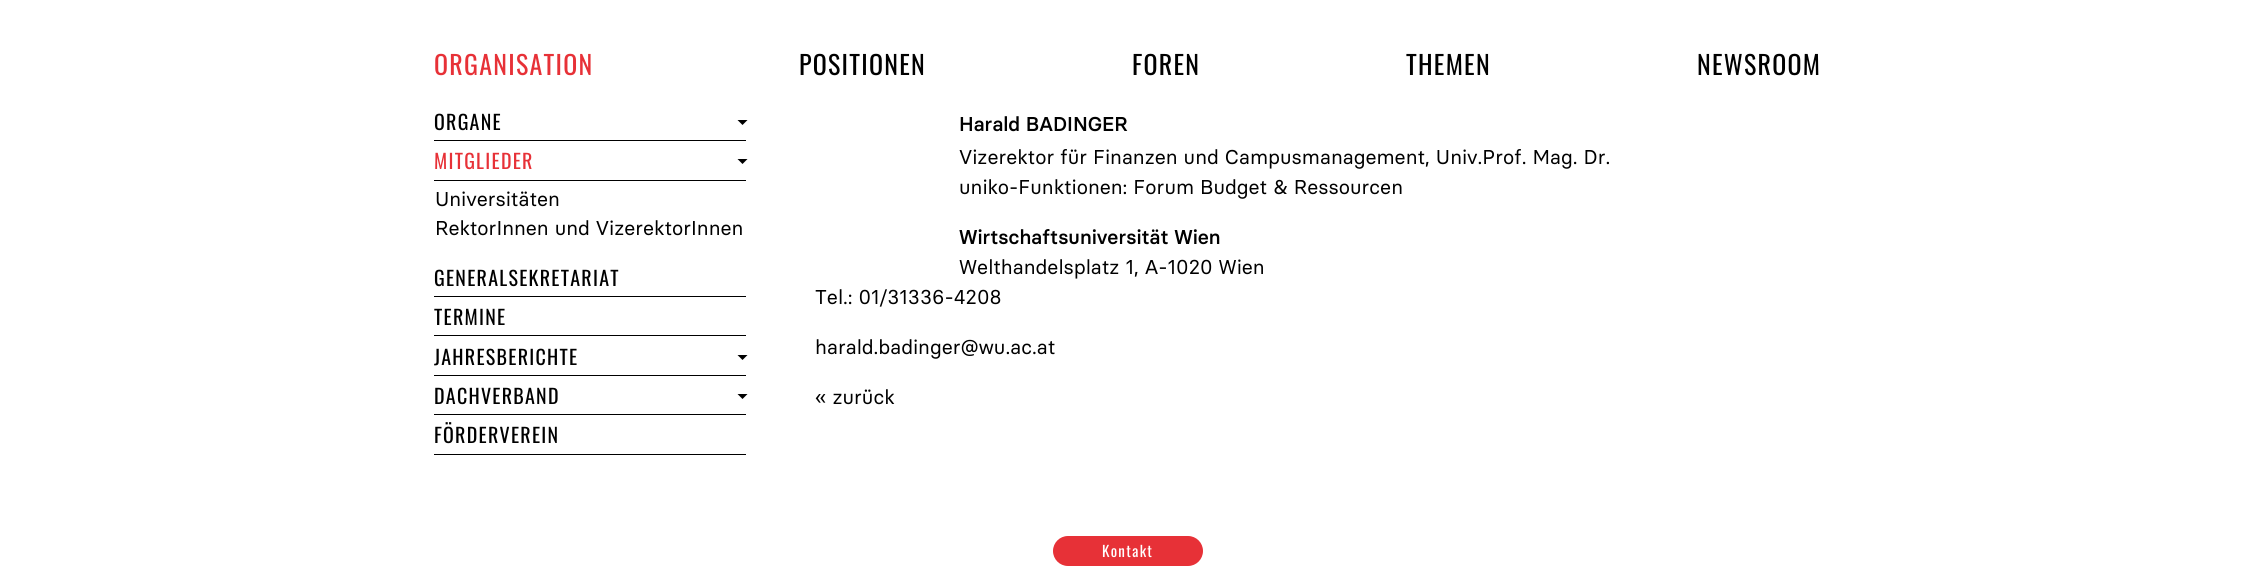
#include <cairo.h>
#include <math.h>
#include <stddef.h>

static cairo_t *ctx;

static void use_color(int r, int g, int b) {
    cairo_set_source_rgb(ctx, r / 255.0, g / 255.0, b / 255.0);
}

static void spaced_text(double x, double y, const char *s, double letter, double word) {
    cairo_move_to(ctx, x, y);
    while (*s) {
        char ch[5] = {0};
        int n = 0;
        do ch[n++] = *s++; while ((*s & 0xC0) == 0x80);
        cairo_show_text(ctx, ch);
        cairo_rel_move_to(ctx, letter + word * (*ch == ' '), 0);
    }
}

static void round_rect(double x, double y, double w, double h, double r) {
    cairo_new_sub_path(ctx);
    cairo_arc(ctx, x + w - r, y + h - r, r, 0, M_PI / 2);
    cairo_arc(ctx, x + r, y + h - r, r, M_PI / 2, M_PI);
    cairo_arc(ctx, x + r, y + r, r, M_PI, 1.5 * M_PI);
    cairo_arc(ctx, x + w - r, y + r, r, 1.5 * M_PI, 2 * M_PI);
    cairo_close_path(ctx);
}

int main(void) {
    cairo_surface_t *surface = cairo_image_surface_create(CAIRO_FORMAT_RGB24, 2255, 572);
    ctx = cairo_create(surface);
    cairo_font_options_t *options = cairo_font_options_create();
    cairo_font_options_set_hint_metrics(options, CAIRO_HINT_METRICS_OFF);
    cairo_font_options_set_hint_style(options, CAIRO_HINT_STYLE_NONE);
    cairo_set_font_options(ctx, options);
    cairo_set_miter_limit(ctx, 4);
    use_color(255, 255, 255);
    cairo_paint(ctx);
    cairo_select_font_face(ctx, "Oswald", CAIRO_FONT_SLANT_NORMAL, CAIRO_FONT_WEIGHT_NORMAL);
    cairo_set_font_size(ctx, 26);
    use_color(231, 49, 55);
    spaced_text(434, 75, "ORGANISATION", 1.25, 0);
    use_color(0, 0, 0);
    spaced_text(799, 75, "POSITIONEN", 1.25, 0);
    spaced_text(1132, 75, "FOREN", 1.25, 0);
    spaced_text(1406, 75, "THEMEN", 1.25, 0);
    spaced_text(1697, 75, "NEWSROOM", 1.25, 0);
    cairo_rectangle(ctx, 434, 140, 312, 1);
    cairo_fill(ctx);
    cairo_set_font_size(ctx, 20);
    spaced_text(434, 130, "ORGANE", 1.25, 0);
    cairo_new_path(ctx);
    cairo_move_to(ctx, 737.5, 120);
    cairo_line_to(ctx, 747.5, 120);
    cairo_line_to(ctx, 742.5, 125);
    cairo_close_path(ctx);
    cairo_fill(ctx);
    cairo_rectangle(ctx, 434, 180, 312, 1);
    cairo_fill(ctx);
    use_color(231, 49, 55);
    spaced_text(434, 169, "MITGLIEDER", 1.25, 0);
    use_color(0, 0, 0);
    cairo_new_path(ctx);
    cairo_move_to(ctx, 737.5, 159);
    cairo_line_to(ctx, 747.5, 159);
    cairo_line_to(ctx, 742.5, 164);
    cairo_close_path(ctx);
    cairo_fill(ctx);
    cairo_select_font_face(ctx, "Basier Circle", CAIRO_FONT_SLANT_NORMAL, CAIRO_FONT_WEIGHT_NORMAL);
    cairo_move_to(ctx, 435, 206);
    cairo_show_text(ctx, "Universitäten");
    cairo_move_to(ctx, 435, 235);
    cairo_show_text(ctx, "RektorInnen und VizerektorInnen");
    cairo_rectangle(ctx, 434, 296, 312, 1);
    cairo_fill(ctx);
    cairo_select_font_face(ctx, "Oswald", CAIRO_FONT_SLANT_NORMAL, CAIRO_FONT_WEIGHT_NORMAL);
    spaced_text(434, 286, "GENERALSEKRETARIAT", 1.25, 0);
    cairo_rectangle(ctx, 434, 335, 312, 1);
    cairo_fill(ctx);
    spaced_text(434, 325, "TERMINE", 1.25, 0);
    cairo_rectangle(ctx, 434, 375, 312, 1);
    cairo_fill(ctx);
    spaced_text(434, 365, "JAHRESBERICHTE", 1.25, 0);
    cairo_new_path(ctx);
    cairo_move_to(ctx, 737.5, 355);
    cairo_line_to(ctx, 747.5, 355);
    cairo_line_to(ctx, 742.5, 360);
    cairo_close_path(ctx);
    cairo_fill(ctx);
    cairo_rectangle(ctx, 434, 414, 312, 1);
    cairo_fill(ctx);
    spaced_text(434, 404, "DACHVERBAND", 1.25, 0);
    cairo_new_path(ctx);
    cairo_move_to(ctx, 737.5, 394);
    cairo_line_to(ctx, 747.5, 394);
    cairo_line_to(ctx, 742.5, 399);
    cairo_close_path(ctx);
    cairo_fill(ctx);
    cairo_rectangle(ctx, 434, 454, 312, 1);
    cairo_fill(ctx);
    spaced_text(434, 443, "FÖRDERVEREIN", 1.25, 0);
    cairo_select_font_face(ctx, "Basier Circle Medium", CAIRO_FONT_SLANT_NORMAL, CAIRO_FONT_WEIGHT_NORMAL);
    cairo_move_to(ctx, 959, 131);
    cairo_show_text(ctx, "Harald BADINGER");
    cairo_select_font_face(ctx, "Basier Circle", CAIRO_FONT_SLANT_NORMAL, CAIRO_FONT_WEIGHT_NORMAL);
    cairo_move_to(ctx, 959, 164);
    cairo_show_text(ctx, "Vizerektor für Finanzen und Campusmanagement, Univ.Prof. Mag. Dr.");
    cairo_move_to(ctx, 959, 194);
    cairo_show_text(ctx, "uniko-Funktionen: Forum Budget & Ressourcen");
    cairo_select_font_face(ctx, "Basier Circle Medium", CAIRO_FONT_SLANT_NORMAL, CAIRO_FONT_WEIGHT_NORMAL);
    cairo_move_to(ctx, 959, 244);
    cairo_show_text(ctx, "Wirtschaftsuniversität Wien");
    cairo_select_font_face(ctx, "Basier Circle", CAIRO_FONT_SLANT_NORMAL, CAIRO_FONT_WEIGHT_NORMAL);
    cairo_move_to(ctx, 959, 274);
    cairo_show_text(ctx, "Welthandelsplatz 1, A-1020 Wien");
    cairo_move_to(ctx, 815, 304);
    cairo_show_text(ctx, "Tel.: 01/31336-4208");
    cairo_move_to(ctx, 815, 354);
    cairo_show_text(ctx, "harald.badinger@wu.ac.at");
    cairo_move_to(ctx, 815, 404);
    cairo_show_text(ctx, "« zurück");
    use_color(231, 49, 55);
    round_rect(1053, 536, 150, 30, 15);
    cairo_fill(ctx);
    cairo_select_font_face(ctx, "Oswald", CAIRO_FONT_SLANT_NORMAL, CAIRO_FONT_WEIGHT_NORMAL);
    cairo_set_font_size(ctx, 15);
    use_color(255, 255, 255);
    spaced_text(1102, 557, "Kontakt", 1.25, 0);
    cairo_surface_write_to_png(surface, "result.png");
    cairo_font_options_destroy(options);
    cairo_destroy(ctx);
    cairo_surface_destroy(surface);
    return 0;
}
